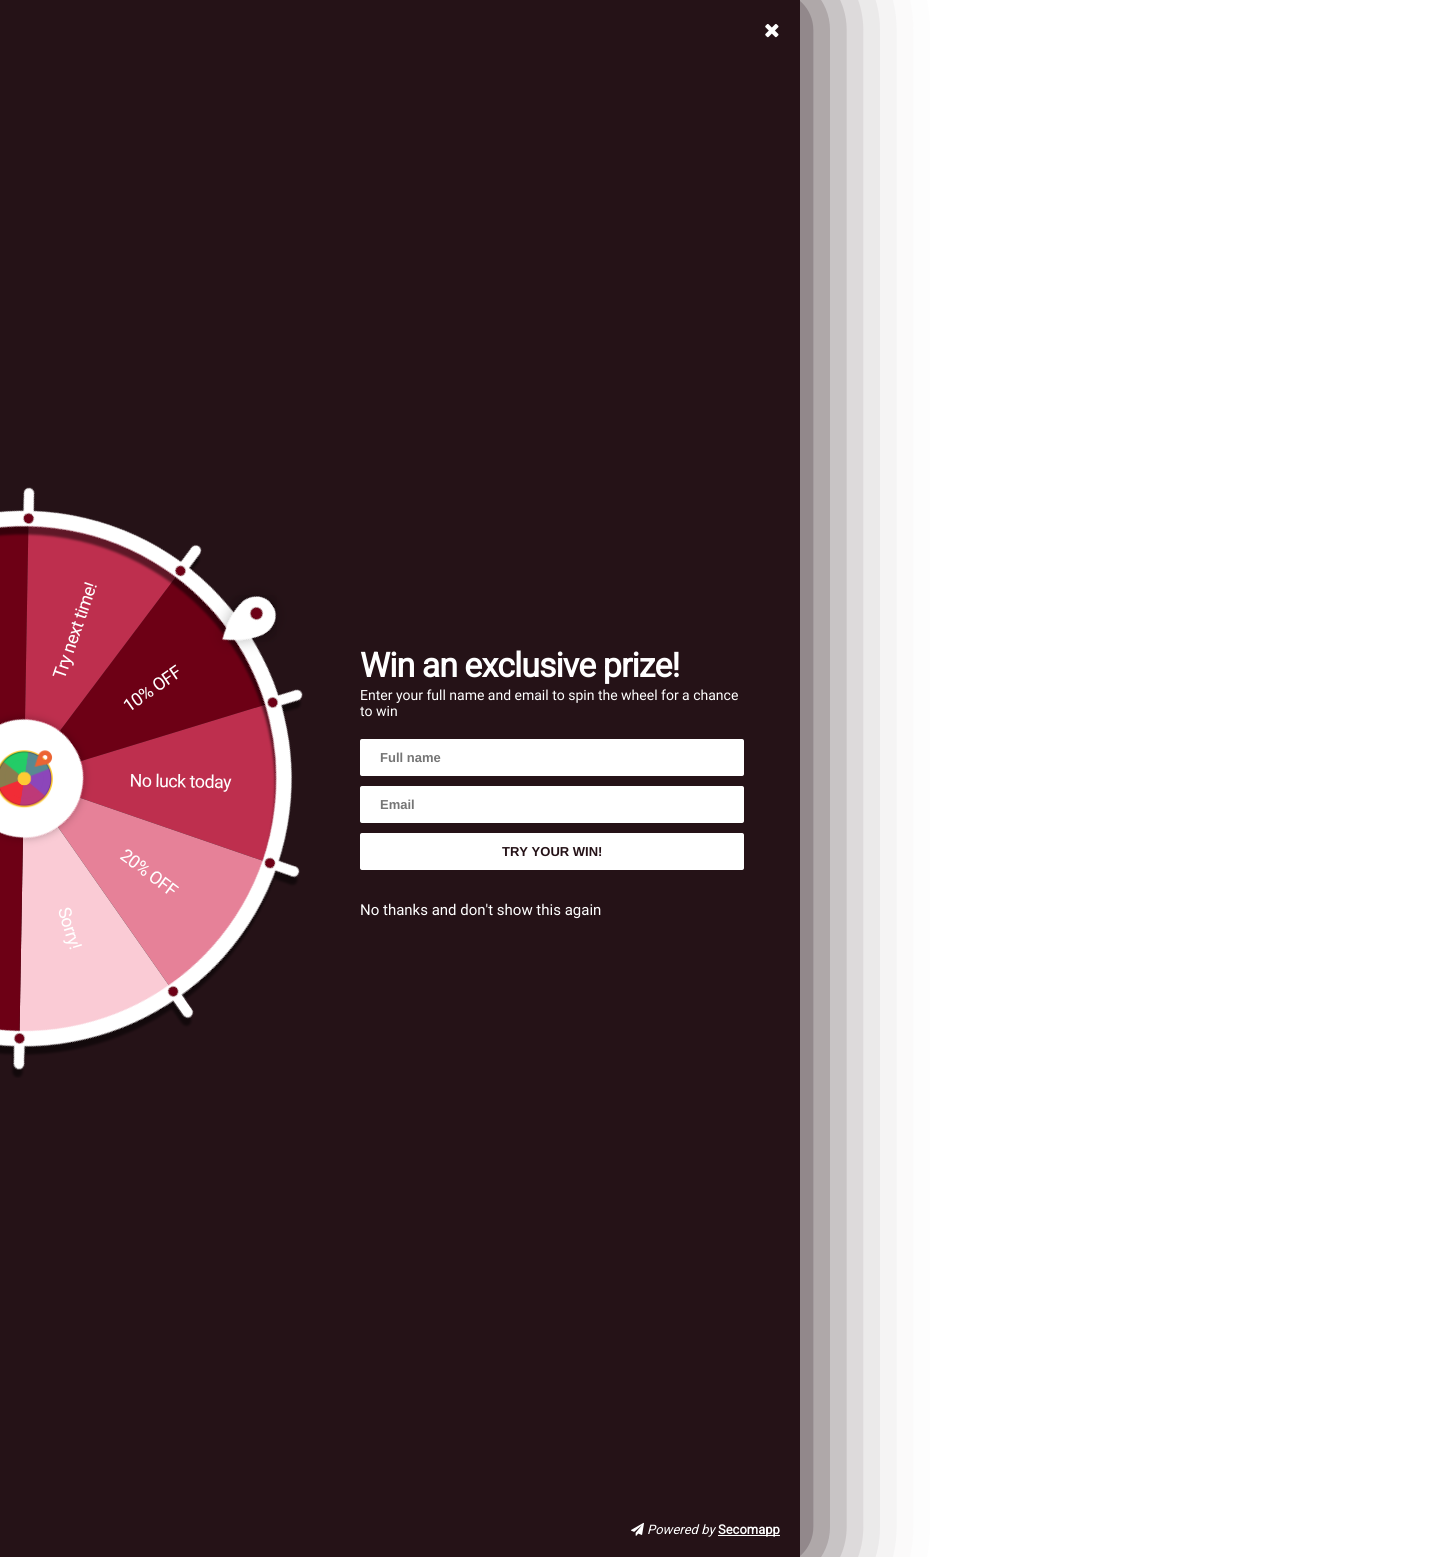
#include <cairo.h>
#include <math.h>
#include <stddef.h>

static cairo_t *ctx;

static void use_color(int r, int g, int b) {
    cairo_set_source_rgb(ctx, r / 255.0, g / 255.0, b / 255.0);
}

static void spaced_text(double x, double y, const char *s, double letter, double word) {
    cairo_move_to(ctx, x, y);
    while (*s) {
        char ch[5] = {0};
        int n = 0;
        do ch[n++] = *s++; while ((*s & 0xC0) == 0x80);
        cairo_show_text(ctx, ch);
        cairo_rel_move_to(ctx, letter + word * (*ch == ' '), 0);
    }
}

static void round_rect(double x, double y, double w, double h, double r) {
    cairo_new_sub_path(ctx);
    cairo_arc(ctx, x + w - r, y + h - r, r, 0, M_PI / 2);
    cairo_arc(ctx, x + r, y + h - r, r, M_PI / 2, M_PI);
    cairo_arc(ctx, x + r, y + r, r, M_PI, 1.5 * M_PI);
    cairo_arc(ctx, x + w - r, y + r, r, 1.5 * M_PI, 2 * M_PI);
    cairo_close_path(ctx);
}

static void shadow(double x, double y, double w, double h, double r, double blur, double alpha) {
    cairo_push_group_with_content(ctx, CAIRO_CONTENT_ALPHA);
    cairo_set_operator(ctx, CAIRO_OPERATOR_SOURCE);
    for (int i = 15; i >= -15 && fmin(w, h) + blur * i / 3 > 0; i -= 2) {
        double e = blur * i / 6;
        cairo_set_source_rgba(ctx, 0, 0, 0, alpha * erfc((i - 1) / 8.5) / 2);
        round_rect(x - e, y - e, w + 2 * e, h + 2 * e, fmax(0, fmin(r + e + blur * .6, fmin(w, h) / 2 + e)));
        cairo_fill(ctx);
    }
    cairo_pattern_t *soft = cairo_pop_group(ctx);
    cairo_mask(ctx, soft);
    cairo_pattern_destroy(soft);
}

static void picture(const char *path, double x, double y, double w, double h) {
    cairo_surface_t *image = cairo_image_surface_create_from_png(path);
    cairo_save(ctx);
    cairo_set_source_surface(ctx, image, x, y);
    cairo_rectangle(ctx, x, y, w, h);
    cairo_fill(ctx);
    cairo_restore(ctx);
    cairo_surface_destroy(image);
}

int main(void) {
    cairo_surface_t *surface = cairo_image_surface_create(CAIRO_FORMAT_RGB24, 1451, 1557);
    ctx = cairo_create(surface);
    cairo_font_options_t *options = cairo_font_options_create();
    cairo_font_options_set_hint_metrics(options, CAIRO_HINT_METRICS_OFF);
    cairo_font_options_set_hint_style(options, CAIRO_HINT_STYLE_NONE);
    cairo_set_font_options(ctx, options);
    cairo_set_miter_limit(ctx, 4);
    use_color(255, 255, 255);
    cairo_paint(ctx);
    use_color(37, 18, 23);
    shadow(5, 0, 800, 1557, 0, 50, 1);
    use_color(37, 18, 23);
    cairo_rectangle(ctx, 0, 0, 800, 1557);
    cairo_fill(ctx);
    picture("img1.png", 765, 24, 14, 14);
    picture("img3.png", 226, 595, 51, 47);
    picture("img2.png", 0, 487, 303, 591);
    cairo_select_font_face(ctx, "Roboto", CAIRO_FONT_SLANT_NORMAL, CAIRO_FONT_WEIGHT_BOLD);
    cairo_set_font_size(ctx, 34);
    use_color(255, 255, 255);
    spaced_text(360, 677, "Win an exclusive prize!", -1, 0);
    cairo_select_font_face(ctx, "Roboto", CAIRO_FONT_SLANT_NORMAL, CAIRO_FONT_WEIGHT_NORMAL);
    cairo_set_font_size(ctx, 14);
    cairo_move_to(ctx, 360, 700);
    cairo_show_text(ctx, "Enter your full name and email to spin the wheel for a chance");
    cairo_move_to(ctx, 360, 716);
    cairo_show_text(ctx, "to win");
    round_rect(360, 739, 384, 37, 2);
    cairo_fill(ctx);
    cairo_select_font_face(ctx, "Liberation Sans", CAIRO_FONT_SLANT_NORMAL, CAIRO_FONT_WEIGHT_BOLD);
    cairo_set_font_size(ctx, 13);
    use_color(117, 117, 117);
    cairo_move_to(ctx, 380, 762);
    cairo_show_text(ctx, "Full name");
    use_color(255, 255, 255);
    round_rect(360, 786, 384, 37, 2);
    cairo_fill(ctx);
    use_color(117, 117, 117);
    cairo_move_to(ctx, 380, 809);
    cairo_show_text(ctx, "Email");
    use_color(255, 255, 255);
    round_rect(360, 833, 384, 37, 2);
    cairo_fill(ctx);
    use_color(37, 18, 23);
    cairo_move_to(ctx, 502, 856);
    cairo_show_text(ctx, "TRY YOUR WIN!");
    cairo_select_font_face(ctx, "Roboto", CAIRO_FONT_SLANT_NORMAL, CAIRO_FONT_WEIGHT_NORMAL);
    cairo_set_font_size(ctx, 15);
    use_color(255, 255, 255);
    cairo_move_to(ctx, 360, 915);
    cairo_show_text(ctx, "No thanks and don't show this again");
    picture("img4.png", 631, 1522, 13, 14);
    cairo_select_font_face(ctx, "Roboto", CAIRO_FONT_SLANT_ITALIC, CAIRO_FONT_WEIGHT_NORMAL);
    cairo_set_font_size(ctx, 13);
    cairo_move_to(ctx, 647, 1534);
    cairo_show_text(ctx, "Powered by");
    cairo_rectangle(ctx, 718, 1535, 62, 1);
    cairo_fill(ctx);
    cairo_select_font_face(ctx, "Roboto", CAIRO_FONT_SLANT_NORMAL, CAIRO_FONT_WEIGHT_BOLD);
    cairo_move_to(ctx, 718, 1534);
    cairo_show_text(ctx, "Secomapp");
    cairo_surface_write_to_png(surface, "result.png");
    cairo_font_options_destroy(options);
    cairo_destroy(ctx);
    cairo_surface_destroy(surface);
    return 0;
}
